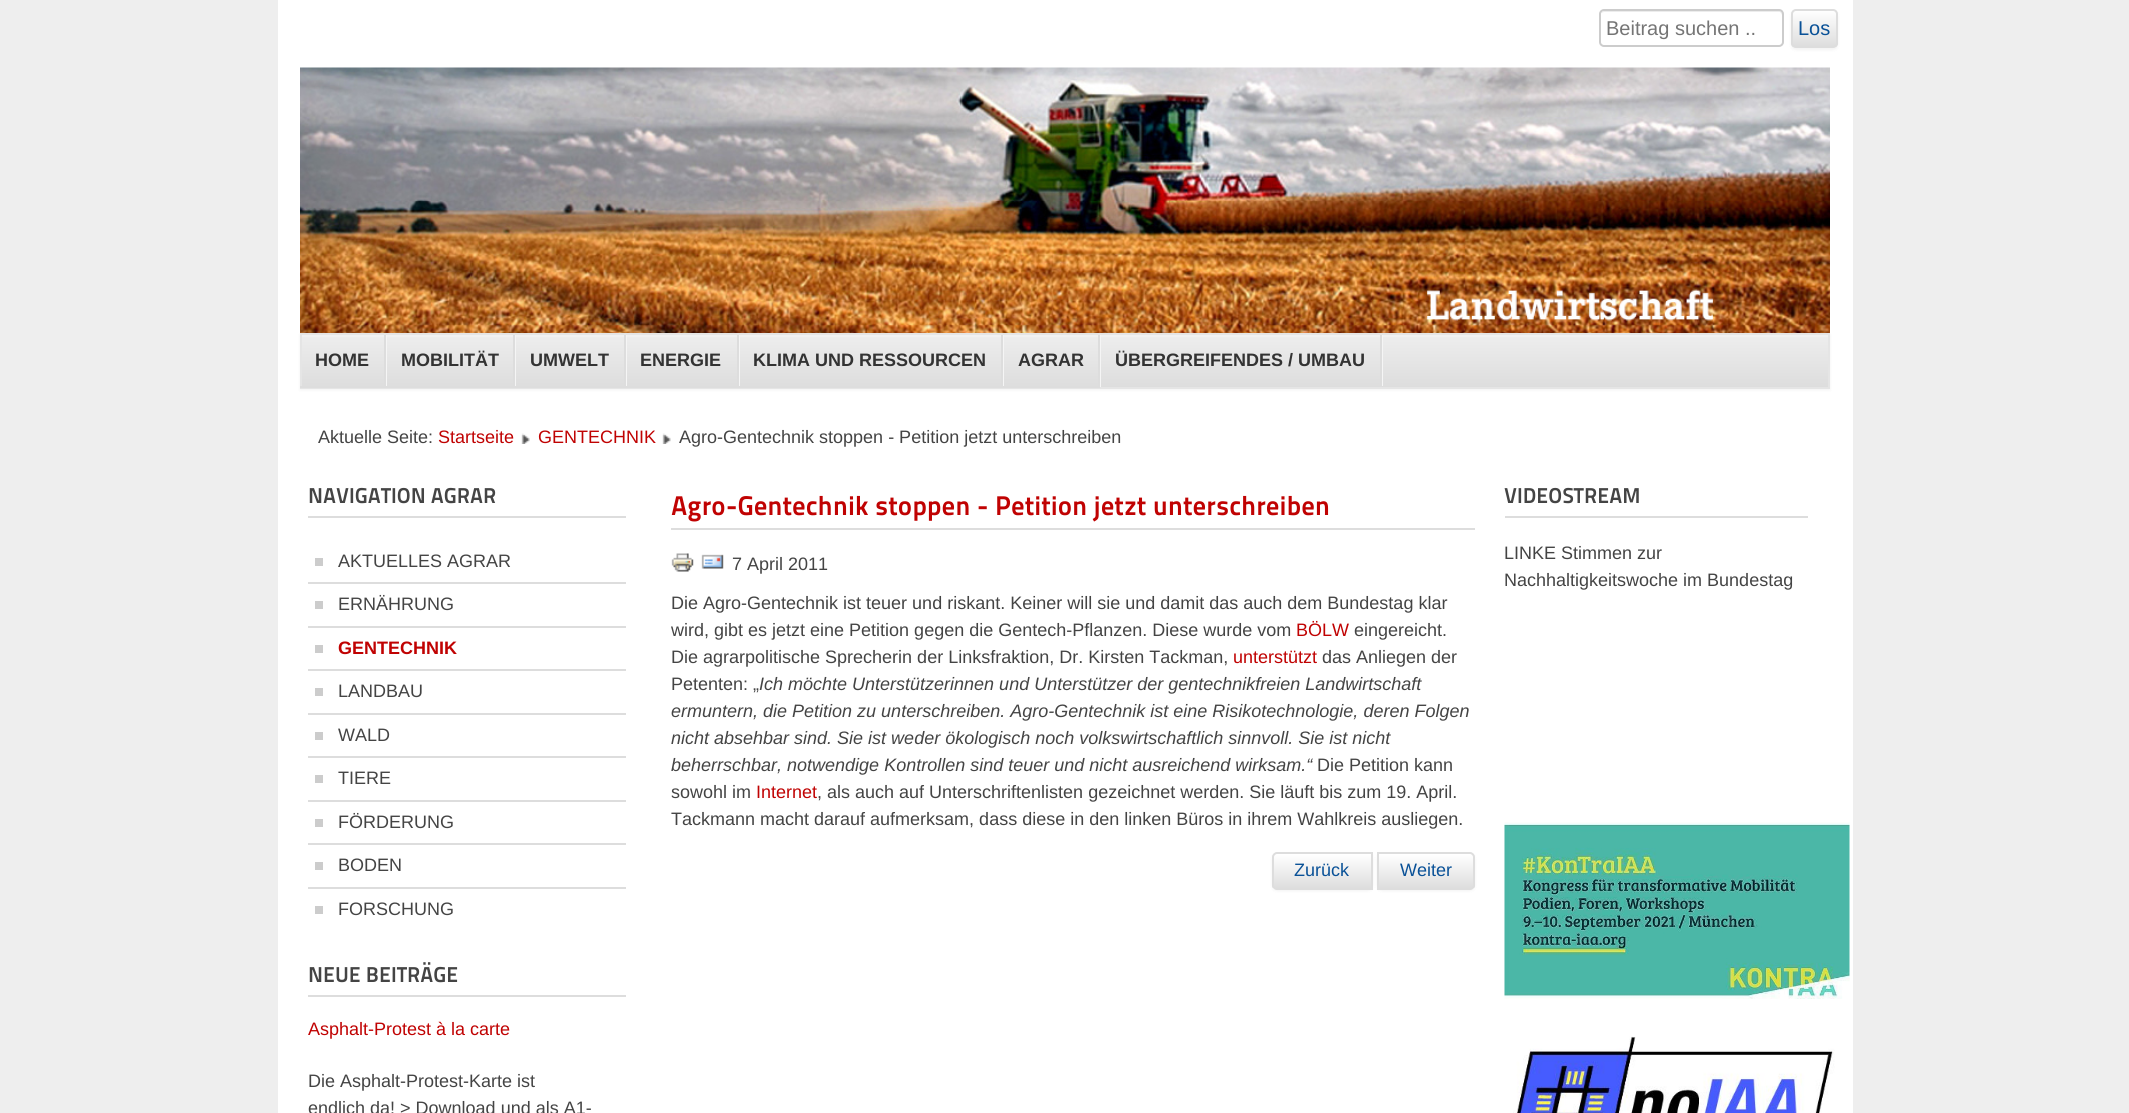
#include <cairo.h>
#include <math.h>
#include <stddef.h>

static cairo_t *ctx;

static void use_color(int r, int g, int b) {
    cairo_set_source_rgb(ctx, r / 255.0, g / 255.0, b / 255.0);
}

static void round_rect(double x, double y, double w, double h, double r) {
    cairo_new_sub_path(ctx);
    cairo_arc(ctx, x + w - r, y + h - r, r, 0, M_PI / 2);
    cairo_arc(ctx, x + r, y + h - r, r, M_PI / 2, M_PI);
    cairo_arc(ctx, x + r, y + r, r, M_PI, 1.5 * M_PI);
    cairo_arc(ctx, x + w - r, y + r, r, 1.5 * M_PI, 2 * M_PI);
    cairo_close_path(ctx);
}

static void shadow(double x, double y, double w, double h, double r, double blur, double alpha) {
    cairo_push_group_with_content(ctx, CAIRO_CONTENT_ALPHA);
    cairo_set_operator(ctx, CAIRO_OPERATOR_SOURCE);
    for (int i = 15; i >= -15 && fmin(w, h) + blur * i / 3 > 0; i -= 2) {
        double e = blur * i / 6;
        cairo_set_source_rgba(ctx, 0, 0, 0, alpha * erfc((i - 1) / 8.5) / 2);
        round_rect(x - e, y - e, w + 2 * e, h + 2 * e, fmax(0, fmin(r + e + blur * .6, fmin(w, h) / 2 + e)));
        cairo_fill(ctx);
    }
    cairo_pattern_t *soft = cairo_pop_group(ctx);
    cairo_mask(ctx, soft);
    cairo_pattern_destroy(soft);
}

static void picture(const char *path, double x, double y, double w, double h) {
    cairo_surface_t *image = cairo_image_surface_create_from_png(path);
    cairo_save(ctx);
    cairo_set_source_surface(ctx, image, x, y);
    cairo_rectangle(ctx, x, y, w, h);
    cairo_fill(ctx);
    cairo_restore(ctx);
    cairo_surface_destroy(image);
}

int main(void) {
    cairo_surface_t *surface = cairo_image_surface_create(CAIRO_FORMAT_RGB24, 2129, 1113);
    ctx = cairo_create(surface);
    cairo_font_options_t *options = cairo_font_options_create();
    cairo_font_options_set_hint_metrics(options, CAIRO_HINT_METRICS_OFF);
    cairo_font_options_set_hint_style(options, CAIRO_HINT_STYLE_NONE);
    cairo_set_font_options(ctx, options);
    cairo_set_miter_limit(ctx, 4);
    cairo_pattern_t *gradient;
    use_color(238, 238, 238);
    cairo_paint(ctx);
    use_color(255, 255, 255);
    cairo_rectangle(ctx, 278, 0, 1575, 1113);
    cairo_fill(ctx);
    use_color(236, 236, 236);
    cairo_new_path(ctx);
    cairo_move_to(ctx, 1604, 12);
    cairo_line_to(ctx, 1780, 12);
    cairo_line_to(ctx, 1781, 13);
    cairo_line_to(ctx, 1782, 15);
    cairo_curve_to(ctx, 1782, 13, 1782, 12, 1780, 11);
    cairo_line_to(ctx, 1604, 11);
    cairo_curve_to(ctx, 1603, 11, 1602, 12, 1601, 13);
    cairo_close_path(ctx);
    cairo_fill(ctx);
    round_rect(1600, 10, 183, 36, 4);
    use_color(204, 204, 204);
    cairo_stroke(ctx);
    cairo_select_font_face(ctx, "Liberation Sans", CAIRO_FONT_SLANT_NORMAL, CAIRO_FONT_WEIGHT_NORMAL);
    cairo_set_font_size(ctx, 20);
    use_color(117, 117, 117);
    cairo_move_to(ctx, 1606, 35);
    cairo_show_text(ctx, "Beitrag suchen ..");
    use_color(0, 0, 0);
    shadow(1791, 11, 47, 39, 5, 1.5, 0.05);
    cairo_save(ctx);
    round_rect(1791, 9, 47, 39, 5);
    cairo_clip(ctx);
    gradient = cairo_pattern_create_linear(1814, 10, 1814, 47);
    cairo_pattern_add_color_stop_rgba(gradient, 0, 1, 1, 1, 1);
    cairo_pattern_add_color_stop_rgba(gradient, 1, 0.867, 0.867, 0.867, 1);
    cairo_set_source(ctx, gradient);
    cairo_pattern_destroy(gradient);
    cairo_rectangle(ctx, 1791, 11, 47, 36);
    cairo_fill(ctx);
    cairo_restore(ctx);
    round_rect(1792, 10, 45, 37, 4);
    use_color(221, 221, 221);
    cairo_stroke(ctx);
    use_color(9, 81, 151);
    cairo_move_to(ctx, 1798, 35);
    cairo_show_text(ctx, "Los");
    picture("img1.png", 300, 67, 1530, 266);
    use_color(0, 0, 0);
    shadow(300, 335, 1530, 55, 0, 1.5, 0.05);
    gradient = cairo_pattern_create_linear(1065, 334, 1065, 387);
    cairo_pattern_add_color_stop_rgba(gradient, 0, 0.933, 0.933, 0.933, 1);
    cairo_pattern_add_color_stop_rgba(gradient, 1, 0.867, 0.867, 0.867, 1);
    cairo_set_source(ctx, gradient);
    cairo_pattern_destroy(gradient);
    cairo_rectangle(ctx, 302, 337, 1526, 50);
    cairo_fill(ctx);
    use_color(241, 241, 241);
    cairo_rectangle(ctx, 302, 335, 1527, 2);
    cairo_fill(ctx);
    cairo_rectangle(ctx, 301, 334, 1528, 54);
    use_color(229, 229, 229);
    cairo_stroke(ctx);
    use_color(245, 245, 245);
    cairo_rectangle(ctx, 386, 335, 1, 52);
    cairo_fill(ctx);
    use_color(221, 221, 221);
    cairo_rectangle(ctx, 384, 335, 2, 52);
    cairo_fill(ctx);
    cairo_rectangle(ctx, 300, 386, 86, 2);
    cairo_fill(ctx);
    cairo_select_font_face(ctx, "Liberation Sans", CAIRO_FONT_SLANT_NORMAL, CAIRO_FONT_WEIGHT_BOLD);
    cairo_set_font_size(ctx, 18);
    use_color(51, 51, 51);
    cairo_move_to(ctx, 315, 366);
    cairo_show_text(ctx, "HOME");
    use_color(245, 245, 245);
    cairo_rectangle(ctx, 515, 335, 1, 52);
    cairo_fill(ctx);
    use_color(221, 221, 221);
    cairo_rectangle(ctx, 513, 335, 2, 52);
    cairo_fill(ctx);
    cairo_rectangle(ctx, 386, 386, 129, 2);
    cairo_fill(ctx);
    use_color(51, 51, 51);
    cairo_move_to(ctx, 401, 366);
    cairo_show_text(ctx, "MOBILITÄT");
    use_color(245, 245, 245);
    cairo_rectangle(ctx, 626, 335, 1, 52);
    cairo_fill(ctx);
    use_color(221, 221, 221);
    cairo_rectangle(ctx, 624, 335, 2, 52);
    cairo_fill(ctx);
    cairo_rectangle(ctx, 515, 386, 111, 2);
    cairo_fill(ctx);
    use_color(51, 51, 51);
    cairo_move_to(ctx, 530, 366);
    cairo_show_text(ctx, "UMWELT");
    use_color(245, 245, 245);
    cairo_rectangle(ctx, 739, 335, 1, 52);
    cairo_fill(ctx);
    use_color(221, 221, 221);
    cairo_rectangle(ctx, 737, 335, 2, 52);
    cairo_fill(ctx);
    cairo_rectangle(ctx, 626, 386, 112, 2);
    cairo_fill(ctx);
    use_color(51, 51, 51);
    cairo_move_to(ctx, 640, 366);
    cairo_show_text(ctx, "ENERGIE");
    use_color(245, 245, 245);
    cairo_rectangle(ctx, 1003, 335, 1, 52);
    cairo_fill(ctx);
    use_color(221, 221, 221);
    cairo_rectangle(ctx, 1001, 335, 2, 52);
    cairo_fill(ctx);
    cairo_rectangle(ctx, 738, 386, 264, 2);
    cairo_fill(ctx);
    use_color(51, 51, 51);
    cairo_move_to(ctx, 753, 366);
    cairo_show_text(ctx, "KLIMA UND RESSOURCEN");
    use_color(245, 245, 245);
    cairo_rectangle(ctx, 1100, 335, 1, 52);
    cairo_fill(ctx);
    use_color(221, 221, 221);
    cairo_rectangle(ctx, 1098, 335, 2, 52);
    cairo_fill(ctx);
    cairo_rectangle(ctx, 1002, 386, 98, 2);
    cairo_fill(ctx);
    use_color(51, 51, 51);
    cairo_move_to(ctx, 1018, 366);
    cairo_show_text(ctx, "AGRAR");
    use_color(245, 245, 245);
    cairo_new_path(ctx);
    cairo_move_to(ctx, 1101, 386);
    cairo_line_to(ctx, 1383, 386);
    cairo_line_to(ctx, 1383, 335);
    cairo_line_to(ctx, 1382, 335);
    cairo_line_to(ctx, 1382, 386);
    cairo_close_path(ctx);
    cairo_fill(ctx);
    use_color(221, 221, 221);
    cairo_rectangle(ctx, 1380, 335, 2, 51);
    cairo_fill(ctx);
    use_color(51, 51, 51);
    cairo_move_to(ctx, 1115, 366);
    cairo_show_text(ctx, "ÜBERGREIFENDES / UMBAU");
    cairo_select_font_face(ctx, "Liberation Sans", CAIRO_FONT_SLANT_NORMAL, CAIRO_FONT_WEIGHT_NORMAL);
    use_color(68, 68, 68);
    cairo_move_to(ctx, 318, 443);
    cairo_show_text(ctx, "Aktuelle Seite:");
    use_color(192, 2, 2);
    cairo_move_to(ctx, 438, 443);
    cairo_show_text(ctx, "Startseite");
    picture("img2.png", 521, 433, 9, 11);
    cairo_move_to(ctx, 538, 443);
    cairo_show_text(ctx, "GENTECHNIK");
    picture("img2.png", 662, 433, 9, 11);
    use_color(68, 68, 68);
    cairo_move_to(ctx, 679, 443);
    cairo_show_text(ctx, "Agro-Gentechnik stoppen - Petition jetzt unterschreiben");
    use_color(221, 221, 221);
    cairo_rectangle(ctx, 308, 516, 318, 2);
    cairo_fill(ctx);
    cairo_select_font_face(ctx, "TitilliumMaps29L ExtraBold", CAIRO_FONT_SLANT_NORMAL, CAIRO_FONT_WEIGHT_NORMAL);
    cairo_set_font_size(ctx, 21.5);
    use_color(68, 68, 68);
    cairo_move_to(ctx, 308, 503);
    cairo_show_text(ctx, "NAVIGATION AGRAR");
    use_color(204, 204, 204);
    cairo_rectangle(ctx, 315, 558, 8, 8);
    cairo_fill(ctx);
    use_color(221, 221, 221);
    cairo_rectangle(ctx, 308, 582, 318, 2);
    cairo_fill(ctx);
    cairo_select_font_face(ctx, "Liberation Sans", CAIRO_FONT_SLANT_NORMAL, CAIRO_FONT_WEIGHT_NORMAL);
    cairo_set_font_size(ctx, 18);
    use_color(68, 68, 68);
    cairo_move_to(ctx, 338, 567);
    cairo_show_text(ctx, "AKTUELLES AGRAR");
    use_color(204, 204, 204);
    cairo_rectangle(ctx, 315, 601, 8, 8);
    cairo_fill(ctx);
    use_color(221, 221, 221);
    cairo_rectangle(ctx, 308, 626, 318, 2);
    cairo_fill(ctx);
    use_color(68, 68, 68);
    cairo_move_to(ctx, 338, 610);
    cairo_show_text(ctx, "ERNÄHRUNG");
    use_color(204, 204, 204);
    cairo_rectangle(ctx, 315, 645, 8, 8);
    cairo_fill(ctx);
    use_color(221, 221, 221);
    cairo_rectangle(ctx, 308, 669, 318, 2);
    cairo_fill(ctx);
    cairo_select_font_face(ctx, "Liberation Sans", CAIRO_FONT_SLANT_NORMAL, CAIRO_FONT_WEIGHT_BOLD);
    use_color(192, 2, 2);
    cairo_move_to(ctx, 338, 654);
    cairo_show_text(ctx, "GENTECHNIK");
    use_color(204, 204, 204);
    cairo_rectangle(ctx, 315, 688, 8, 8);
    cairo_fill(ctx);
    use_color(221, 221, 221);
    cairo_rectangle(ctx, 308, 713, 318, 2);
    cairo_fill(ctx);
    cairo_select_font_face(ctx, "Liberation Sans", CAIRO_FONT_SLANT_NORMAL, CAIRO_FONT_WEIGHT_NORMAL);
    use_color(68, 68, 68);
    cairo_move_to(ctx, 338, 697);
    cairo_show_text(ctx, "LANDBAU");
    use_color(204, 204, 204);
    cairo_rectangle(ctx, 315, 732, 8, 8);
    cairo_fill(ctx);
    use_color(221, 221, 221);
    cairo_rectangle(ctx, 308, 756, 318, 2);
    cairo_fill(ctx);
    use_color(68, 68, 68);
    cairo_move_to(ctx, 338, 741);
    cairo_show_text(ctx, "WALD");
    use_color(204, 204, 204);
    cairo_rectangle(ctx, 315, 775, 8, 8);
    cairo_fill(ctx);
    use_color(221, 221, 221);
    cairo_rectangle(ctx, 308, 800, 318, 2);
    cairo_fill(ctx);
    use_color(68, 68, 68);
    cairo_move_to(ctx, 338, 784);
    cairo_show_text(ctx, "TIERE");
    use_color(204, 204, 204);
    cairo_rectangle(ctx, 315, 819, 8, 8);
    cairo_fill(ctx);
    use_color(221, 221, 221);
    cairo_rectangle(ctx, 308, 843, 318, 2);
    cairo_fill(ctx);
    use_color(68, 68, 68);
    cairo_move_to(ctx, 338, 828);
    cairo_show_text(ctx, "FÖRDERUNG");
    use_color(204, 204, 204);
    cairo_rectangle(ctx, 315, 862, 8, 8);
    cairo_fill(ctx);
    use_color(221, 221, 221);
    cairo_rectangle(ctx, 308, 887, 318, 2);
    cairo_fill(ctx);
    use_color(68, 68, 68);
    cairo_move_to(ctx, 338, 871);
    cairo_show_text(ctx, "BODEN");
    use_color(204, 204, 204);
    cairo_rectangle(ctx, 315, 906, 8, 8);
    cairo_fill(ctx);
    use_color(68, 68, 68);
    cairo_move_to(ctx, 338, 915);
    cairo_show_text(ctx, "FORSCHUNG");
    use_color(221, 221, 221);
    cairo_rectangle(ctx, 308, 995, 318, 2);
    cairo_fill(ctx);
    cairo_select_font_face(ctx, "TitilliumMaps29L ExtraBold", CAIRO_FONT_SLANT_NORMAL, CAIRO_FONT_WEIGHT_NORMAL);
    cairo_set_font_size(ctx, 21.5);
    use_color(68, 68, 68);
    cairo_move_to(ctx, 308, 982);
    cairo_show_text(ctx, "NEUE BEITRÄGE");
    cairo_select_font_face(ctx, "Liberation Sans", CAIRO_FONT_SLANT_NORMAL, CAIRO_FONT_WEIGHT_NORMAL);
    cairo_set_font_size(ctx, 18);
    use_color(192, 2, 2);
    cairo_move_to(ctx, 308, 1035);
    cairo_show_text(ctx, "Asphalt-Protest à la carte");
    use_color(68, 68, 68);
    cairo_move_to(ctx, 308, 1087);
    cairo_show_text(ctx, "Die Asphalt-Protest-Karte ist");
    cairo_move_to(ctx, 308, 1114);
    cairo_show_text(ctx, "endlich da! > Download und als A1-");
    use_color(221, 221, 221);
    cairo_rectangle(ctx, 671, 528, 804, 2);
    cairo_fill(ctx);
    cairo_select_font_face(ctx, "TitilliumMaps29L ExtraBold", CAIRO_FONT_SLANT_NORMAL, CAIRO_FONT_WEIGHT_NORMAL);
    cairo_set_font_size(ctx, 27);
    use_color(192, 2, 2);
    cairo_move_to(ctx, 671, 515);
    cairo_show_text(ctx, "Agro-Gentechnik stoppen - Petition jetzt unterschreiben");
    picture("img3.png", 671, 553, 23, 19);
    picture("img4.png", 701, 554, 23, 15);
    cairo_select_font_face(ctx, "Liberation Sans", CAIRO_FONT_SLANT_NORMAL, CAIRO_FONT_WEIGHT_NORMAL);
    cairo_set_font_size(ctx, 18);
    use_color(68, 68, 68);
    cairo_move_to(ctx, 732, 570);
    cairo_show_text(ctx, "7 April 2011");
    cairo_move_to(ctx, 671, 609);
    cairo_show_text(ctx, "Die Agro-Gentechnik ist teuer und riskant. Keiner will sie und damit das auch dem Bundestag klar");
    cairo_move_to(ctx, 671, 636);
    cairo_show_text(ctx, "wird, gibt es jetzt eine Petition gegen die Gentech-Pflanzen. Diese wurde vom");
    use_color(192, 2, 2);
    cairo_move_to(ctx, 1296, 636);
    cairo_show_text(ctx, "BÖLW");
    use_color(68, 68, 68);
    cairo_move_to(ctx, 1354, 636);
    cairo_show_text(ctx, "eingereicht.");
    cairo_move_to(ctx, 671, 663);
    cairo_show_text(ctx, "Die agrarpolitische Sprecherin der Linksfraktion, Dr. Kirsten Tackman,");
    use_color(192, 2, 2);
    cairo_move_to(ctx, 1233, 663);
    cairo_show_text(ctx, "unterstützt");
    use_color(68, 68, 68);
    cairo_move_to(ctx, 1322, 663);
    cairo_show_text(ctx, "das Anliegen der");
    cairo_move_to(ctx, 671, 690);
    cairo_show_text(ctx, "Petenten: „");
    cairo_select_font_face(ctx, "Liberation Sans", CAIRO_FONT_SLANT_ITALIC, CAIRO_FONT_WEIGHT_NORMAL);
    cairo_move_to(ctx, 759, 690);
    cairo_show_text(ctx, "Ich möchte Unterstützerinnen und Unterstützer der gentechnikfreien Landwirtschaft");
    cairo_move_to(ctx, 671, 717);
    cairo_show_text(ctx, "ermuntern, die Petition zu unterschreiben. Agro-Gentechnik ist eine Risikotechnologie, deren Folgen");
    cairo_move_to(ctx, 671, 744);
    cairo_show_text(ctx, "nicht absehbar sind. Sie ist weder ökologisch noch volkswirtschaftlich sinnvoll. Sie ist nicht");
    cairo_move_to(ctx, 671, 771);
    cairo_show_text(ctx, "beherrschbar, notwendige Kontrollen sind teuer und nicht ausreichend wirksam.“");
    cairo_select_font_face(ctx, "Liberation Sans", CAIRO_FONT_SLANT_NORMAL, CAIRO_FONT_WEIGHT_NORMAL);
    cairo_move_to(ctx, 1317, 771);
    cairo_show_text(ctx, "Die Petition kann");
    cairo_move_to(ctx, 671, 798);
    cairo_show_text(ctx, "sowohl im");
    use_color(192, 2, 2);
    cairo_move_to(ctx, 756, 798);
    cairo_show_text(ctx, "Internet");
    use_color(68, 68, 68);
    cairo_move_to(ctx, 817, 798);
    cairo_show_text(ctx, ", als auch auf Unterschriftenlisten gezeichnet werden. Sie läuft bis zum 19. April.");
    cairo_move_to(ctx, 671, 825);
    cairo_show_text(ctx, "Tackmann macht darauf aufmerksam, dass diese in den linken Büros in ihrem Wahlkreis ausliegen.");
    use_color(0, 0, 0);
    shadow(1272, 854, 101, 37, 5, 1.5, 0.05);
    cairo_save(ctx);
    cairo_new_path(ctx);
    cairo_move_to(ctx, 1277, 852);
    cairo_line_to(ctx, 1373, 852);
    cairo_line_to(ctx, 1373, 890);
    cairo_line_to(ctx, 1277, 890);
    cairo_curve_to(ctx, 1274, 890, 1272, 888, 1272, 885);
    cairo_line_to(ctx, 1272, 857);
    cairo_curve_to(ctx, 1272, 854, 1274, 852, 1277, 852);
    cairo_close_path(ctx);
    cairo_clip(ctx);
    gradient = cairo_pattern_create_linear(1322, 854, 1322, 888);
    cairo_pattern_add_color_stop_rgba(gradient, 0, 1, 1, 1, 1);
    cairo_pattern_add_color_stop_rgba(gradient, 1, 0.867, 0.867, 0.867, 1);
    cairo_set_source(ctx, gradient);
    cairo_pattern_destroy(gradient);
    cairo_rectangle(ctx, 1272, 854, 99, 34);
    cairo_fill(ctx);
    cairo_restore(ctx);
    cairo_new_path(ctx);
    cairo_move_to(ctx, 1277, 853);
    cairo_line_to(ctx, 1372, 853);
    cairo_line_to(ctx, 1372, 889);
    cairo_line_to(ctx, 1277, 889);
    cairo_curve_to(ctx, 1275, 889, 1273, 887, 1273, 885);
    cairo_line_to(ctx, 1273, 857);
    cairo_curve_to(ctx, 1273, 855, 1275, 853, 1277, 853);
    cairo_close_path(ctx);
    use_color(221, 221, 221);
    cairo_stroke(ctx);
    use_color(9, 81, 151);
    cairo_move_to(ctx, 1294, 876);
    cairo_show_text(ctx, "Zurück");
    use_color(0, 0, 0);
    shadow(1377, 854, 98, 37, 5, 1.5, 0.05);
    cairo_save(ctx);
    cairo_new_path(ctx);
    cairo_move_to(ctx, 1377, 852);
    cairo_line_to(ctx, 1470, 852);
    cairo_curve_to(ctx, 1473, 852, 1475, 854, 1475, 857);
    cairo_line_to(ctx, 1475, 885);
    cairo_curve_to(ctx, 1475, 888, 1473, 890, 1470, 890);
    cairo_line_to(ctx, 1377, 890);
    cairo_close_path(ctx);
    cairo_clip(ctx);
    gradient = cairo_pattern_create_linear(1426, 854, 1426, 888);
    cairo_pattern_add_color_stop_rgba(gradient, 0, 1, 1, 1, 1);
    cairo_pattern_add_color_stop_rgba(gradient, 1, 0.867, 0.867, 0.867, 1);
    cairo_set_source(ctx, gradient);
    cairo_pattern_destroy(gradient);
    cairo_rectangle(ctx, 1379, 854, 96, 34);
    cairo_fill(ctx);
    cairo_restore(ctx);
    cairo_new_path(ctx);
    cairo_move_to(ctx, 1378, 853);
    cairo_line_to(ctx, 1470, 853);
    cairo_curve_to(ctx, 1472, 853, 1474, 855, 1474, 857);
    cairo_line_to(ctx, 1474, 885);
    cairo_curve_to(ctx, 1474, 887, 1472, 889, 1470, 889);
    cairo_line_to(ctx, 1378, 889);
    cairo_close_path(ctx);
    use_color(221, 221, 221);
    cairo_stroke(ctx);
    use_color(9, 81, 151);
    cairo_move_to(ctx, 1400, 876);
    cairo_show_text(ctx, "Weiter");
    use_color(221, 221, 221);
    cairo_rectangle(ctx, 1505, 516, 303, 2);
    cairo_fill(ctx);
    cairo_select_font_face(ctx, "TitilliumMaps29L ExtraBold", CAIRO_FONT_SLANT_NORMAL, CAIRO_FONT_WEIGHT_NORMAL);
    cairo_set_font_size(ctx, 21.5);
    use_color(68, 68, 68);
    cairo_move_to(ctx, 1504, 503);
    cairo_show_text(ctx, "VIDEOSTREAM");
    cairo_select_font_face(ctx, "Liberation Sans", CAIRO_FONT_SLANT_NORMAL, CAIRO_FONT_WEIGHT_NORMAL);
    cairo_set_font_size(ctx, 18);
    cairo_move_to(ctx, 1504, 559);
    cairo_show_text(ctx, "LINKE Stimmen zur");
    cairo_move_to(ctx, 1504, 586);
    cairo_show_text(ctx, "Nachhaltigkeitswoche im Bundestag");
    picture("img5.png", 1504, 822, 346, 177);
    picture("img6.png", 1513, 1036, 322, 77);
    cairo_surface_write_to_png(surface, "result.png");
    cairo_font_options_destroy(options);
    cairo_destroy(ctx);
    cairo_surface_destroy(surface);
    return 0;
}
